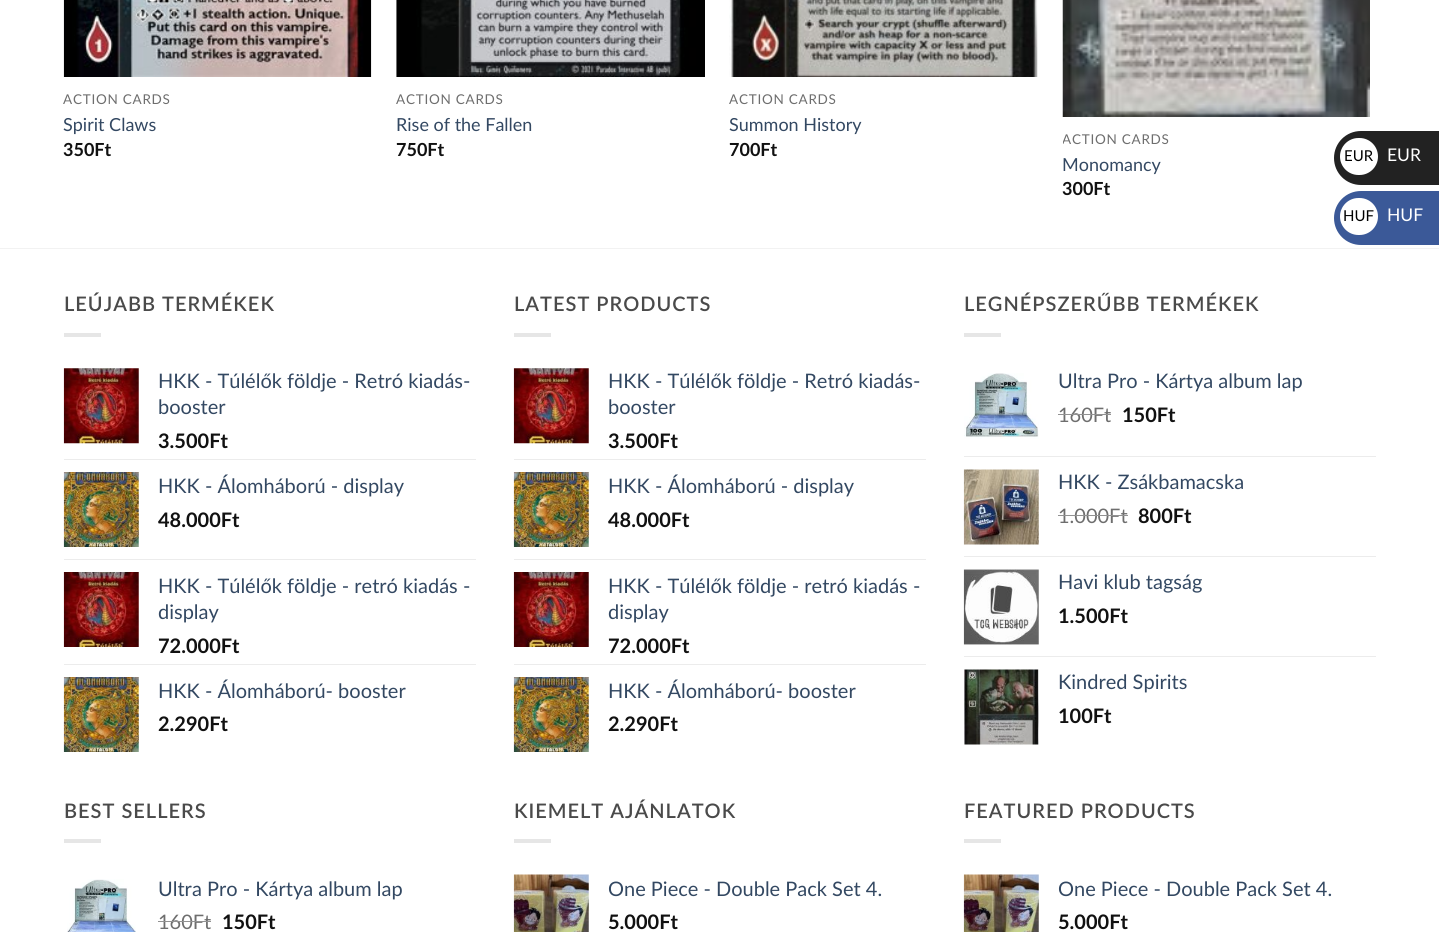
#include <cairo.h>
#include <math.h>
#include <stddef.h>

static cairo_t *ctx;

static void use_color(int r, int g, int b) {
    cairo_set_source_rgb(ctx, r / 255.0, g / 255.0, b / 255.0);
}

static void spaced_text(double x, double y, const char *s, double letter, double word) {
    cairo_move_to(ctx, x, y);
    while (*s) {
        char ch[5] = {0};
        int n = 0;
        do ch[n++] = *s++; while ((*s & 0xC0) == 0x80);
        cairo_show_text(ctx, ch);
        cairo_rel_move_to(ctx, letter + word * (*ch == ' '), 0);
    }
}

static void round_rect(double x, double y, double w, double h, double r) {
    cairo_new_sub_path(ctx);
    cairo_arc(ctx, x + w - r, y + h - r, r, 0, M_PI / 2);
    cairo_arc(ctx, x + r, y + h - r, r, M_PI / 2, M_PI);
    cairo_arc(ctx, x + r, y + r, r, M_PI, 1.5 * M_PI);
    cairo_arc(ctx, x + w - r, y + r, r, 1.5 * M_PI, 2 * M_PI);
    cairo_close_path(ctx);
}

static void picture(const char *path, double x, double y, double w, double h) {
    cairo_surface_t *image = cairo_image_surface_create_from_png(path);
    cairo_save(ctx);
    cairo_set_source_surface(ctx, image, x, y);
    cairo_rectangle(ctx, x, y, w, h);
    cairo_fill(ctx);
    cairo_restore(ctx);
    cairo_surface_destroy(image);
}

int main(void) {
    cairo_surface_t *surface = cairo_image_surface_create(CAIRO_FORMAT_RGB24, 1439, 932);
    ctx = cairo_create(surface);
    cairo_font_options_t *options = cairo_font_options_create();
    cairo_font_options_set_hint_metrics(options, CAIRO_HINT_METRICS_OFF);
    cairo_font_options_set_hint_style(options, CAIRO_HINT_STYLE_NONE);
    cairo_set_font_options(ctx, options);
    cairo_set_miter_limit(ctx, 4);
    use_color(255, 255, 255);
    cairo_paint(ctx);
    picture("img1.png", 63, 0, 309, 77);
    cairo_select_font_face(ctx, "Lato", CAIRO_FONT_SLANT_NORMAL, CAIRO_FONT_WEIGHT_NORMAL);
    cairo_set_font_size(ctx, 13.5);
    use_color(110, 110, 110);
    spaced_text(63, 104, "ACTION CARDS", 0.75, 0);
    cairo_set_font_size(ctx, 18);
    use_color(51, 72, 98);
    cairo_move_to(ctx, 63, 131);
    cairo_show_text(ctx, "Spirit Claws");
    cairo_select_font_face(ctx, "Lato", CAIRO_FONT_SLANT_NORMAL, CAIRO_FONT_WEIGHT_BOLD);
    use_color(17, 17, 17);
    cairo_move_to(ctx, 63, 156);
    cairo_show_text(ctx, "350Ft");
    picture("img2.png", 396, 0, 309, 77);
    cairo_select_font_face(ctx, "Lato", CAIRO_FONT_SLANT_NORMAL, CAIRO_FONT_WEIGHT_NORMAL);
    cairo_set_font_size(ctx, 13.5);
    use_color(110, 110, 110);
    spaced_text(396, 104, "ACTION CARDS", 0.75, 0);
    cairo_set_font_size(ctx, 18);
    use_color(51, 72, 98);
    cairo_move_to(ctx, 396, 131);
    cairo_show_text(ctx, "Rise of the Fallen");
    cairo_select_font_face(ctx, "Lato", CAIRO_FONT_SLANT_NORMAL, CAIRO_FONT_WEIGHT_BOLD);
    use_color(17, 17, 17);
    cairo_move_to(ctx, 396, 156);
    cairo_show_text(ctx, "750Ft");
    picture("img3.png", 729, 0, 309, 77);
    cairo_select_font_face(ctx, "Lato", CAIRO_FONT_SLANT_NORMAL, CAIRO_FONT_WEIGHT_NORMAL);
    cairo_set_font_size(ctx, 13.5);
    use_color(110, 110, 110);
    spaced_text(729, 104, "ACTION CARDS", 0.75, 0);
    cairo_set_font_size(ctx, 18);
    use_color(51, 72, 98);
    cairo_move_to(ctx, 729, 131);
    cairo_show_text(ctx, "Summon History");
    cairo_select_font_face(ctx, "Lato", CAIRO_FONT_SLANT_NORMAL, CAIRO_FONT_WEIGHT_BOLD);
    use_color(17, 17, 17);
    cairo_move_to(ctx, 729, 156);
    cairo_show_text(ctx, "700Ft");
    picture("img4.png", 1062, 0, 308, 117);
    cairo_save(ctx);
    cairo_rectangle(ctx, 1063, 131, 307, 17);
    cairo_clip(ctx);
    cairo_select_font_face(ctx, "Lato", CAIRO_FONT_SLANT_NORMAL, CAIRO_FONT_WEIGHT_NORMAL);
    cairo_set_font_size(ctx, 13.5);
    use_color(110, 110, 110);
    spaced_text(1062, 144, "ACTION CARDS", 0.75, 0);
    cairo_restore(ctx);
    cairo_select_font_face(ctx, "Lato", CAIRO_FONT_SLANT_NORMAL, CAIRO_FONT_WEIGHT_NORMAL);
    use_color(51, 72, 98);
    cairo_move_to(ctx, 1062, 171);
    cairo_show_text(ctx, "Monomancy");
    cairo_select_font_face(ctx, "Lato", CAIRO_FONT_SLANT_NORMAL, CAIRO_FONT_WEIGHT_BOLD);
    use_color(17, 17, 17);
    cairo_move_to(ctx, 1062, 195);
    cairo_show_text(ctx, "300Ft");
    use_color(242, 242, 242);
    cairo_rectangle(ctx, 0, 248, 1439, 1);
    cairo_fill(ctx);
    cairo_select_font_face(ctx, "Lato SemiBold", CAIRO_FONT_SLANT_NORMAL, CAIRO_FONT_WEIGHT_NORMAL);
    cairo_set_font_size(ctx, 20);
    use_color(74, 74, 74);
    spaced_text(64, 311, "LEÚJABB TERMÉKEK", 1, 0);
    use_color(230, 230, 230);
    cairo_rectangle(ctx, 64, 333, 37, 4);
    cairo_fill(ctx);
    picture("img5.png", 63, 368, 76, 76);
    cairo_select_font_face(ctx, "Lato", CAIRO_FONT_SLANT_NORMAL, CAIRO_FONT_WEIGHT_NORMAL);
    use_color(51, 72, 98);
    cairo_move_to(ctx, 158, 388);
    cairo_show_text(ctx, "HKK - Túlélők földje - Retró kiadás-");
    cairo_move_to(ctx, 158, 414);
    cairo_show_text(ctx, "booster");
    cairo_select_font_face(ctx, "Lato", CAIRO_FONT_SLANT_NORMAL, CAIRO_FONT_WEIGHT_BOLD);
    use_color(17, 17, 17);
    cairo_move_to(ctx, 158, 448);
    cairo_show_text(ctx, "3.500Ft");
    use_color(236, 236, 236);
    cairo_rectangle(ctx, 64, 459, 412, 1);
    cairo_fill(ctx);
    picture("img6.png", 63, 472, 76, 75);
    cairo_select_font_face(ctx, "Lato", CAIRO_FONT_SLANT_NORMAL, CAIRO_FONT_WEIGHT_NORMAL);
    use_color(51, 72, 98);
    cairo_move_to(ctx, 158, 493);
    cairo_show_text(ctx, "HKK - Álomháború - display");
    cairo_select_font_face(ctx, "Lato", CAIRO_FONT_SLANT_NORMAL, CAIRO_FONT_WEIGHT_BOLD);
    use_color(17, 17, 17);
    cairo_move_to(ctx, 158, 527);
    cairo_show_text(ctx, "48.000Ft");
    use_color(236, 236, 236);
    cairo_rectangle(ctx, 64, 559, 412, 1);
    cairo_fill(ctx);
    picture("img7.png", 63, 572, 76, 75);
    cairo_select_font_face(ctx, "Lato", CAIRO_FONT_SLANT_NORMAL, CAIRO_FONT_WEIGHT_NORMAL);
    use_color(51, 72, 98);
    cairo_move_to(ctx, 158, 593);
    cairo_show_text(ctx, "HKK - Túlélők földje - retró kiadás -");
    cairo_move_to(ctx, 158, 619);
    cairo_show_text(ctx, "display");
    cairo_select_font_face(ctx, "Lato", CAIRO_FONT_SLANT_NORMAL, CAIRO_FONT_WEIGHT_BOLD);
    use_color(17, 17, 17);
    cairo_move_to(ctx, 158, 653);
    cairo_show_text(ctx, "72.000Ft");
    use_color(236, 236, 236);
    cairo_rectangle(ctx, 64, 664, 412, 1);
    cairo_fill(ctx);
    picture("img6.png", 63, 677, 76, 75);
    cairo_select_font_face(ctx, "Lato", CAIRO_FONT_SLANT_NORMAL, CAIRO_FONT_WEIGHT_NORMAL);
    use_color(51, 72, 98);
    cairo_move_to(ctx, 158, 698);
    cairo_show_text(ctx, "HKK - Álomháború- booster");
    cairo_select_font_face(ctx, "Lato", CAIRO_FONT_SLANT_NORMAL, CAIRO_FONT_WEIGHT_BOLD);
    use_color(17, 17, 17);
    cairo_move_to(ctx, 158, 731);
    cairo_show_text(ctx, "2.290Ft");
    cairo_select_font_face(ctx, "Lato SemiBold", CAIRO_FONT_SLANT_NORMAL, CAIRO_FONT_WEIGHT_NORMAL);
    use_color(74, 74, 74);
    spaced_text(514, 311, "LATEST PRODUCTS", 1, 0);
    use_color(230, 230, 230);
    cairo_rectangle(ctx, 514, 333, 37, 4);
    cairo_fill(ctx);
    picture("img5.png", 513, 368, 76, 76);
    cairo_select_font_face(ctx, "Lato", CAIRO_FONT_SLANT_NORMAL, CAIRO_FONT_WEIGHT_NORMAL);
    use_color(51, 72, 98);
    cairo_move_to(ctx, 608, 388);
    cairo_show_text(ctx, "HKK - Túlélők földje - Retró kiadás-");
    cairo_move_to(ctx, 608, 414);
    cairo_show_text(ctx, "booster");
    cairo_select_font_face(ctx, "Lato", CAIRO_FONT_SLANT_NORMAL, CAIRO_FONT_WEIGHT_BOLD);
    use_color(17, 17, 17);
    cairo_move_to(ctx, 608, 448);
    cairo_show_text(ctx, "3.500Ft");
    use_color(236, 236, 236);
    cairo_rectangle(ctx, 514, 459, 412, 1);
    cairo_fill(ctx);
    picture("img6.png", 513, 472, 76, 75);
    cairo_select_font_face(ctx, "Lato", CAIRO_FONT_SLANT_NORMAL, CAIRO_FONT_WEIGHT_NORMAL);
    use_color(51, 72, 98);
    cairo_move_to(ctx, 608, 493);
    cairo_show_text(ctx, "HKK - Álomháború - display");
    cairo_select_font_face(ctx, "Lato", CAIRO_FONT_SLANT_NORMAL, CAIRO_FONT_WEIGHT_BOLD);
    use_color(17, 17, 17);
    cairo_move_to(ctx, 608, 527);
    cairo_show_text(ctx, "48.000Ft");
    use_color(236, 236, 236);
    cairo_rectangle(ctx, 514, 559, 412, 1);
    cairo_fill(ctx);
    picture("img7.png", 513, 572, 76, 75);
    cairo_select_font_face(ctx, "Lato", CAIRO_FONT_SLANT_NORMAL, CAIRO_FONT_WEIGHT_NORMAL);
    use_color(51, 72, 98);
    cairo_move_to(ctx, 608, 593);
    cairo_show_text(ctx, "HKK - Túlélők földje - retró kiadás -");
    cairo_move_to(ctx, 608, 619);
    cairo_show_text(ctx, "display");
    cairo_select_font_face(ctx, "Lato", CAIRO_FONT_SLANT_NORMAL, CAIRO_FONT_WEIGHT_BOLD);
    use_color(17, 17, 17);
    cairo_move_to(ctx, 608, 653);
    cairo_show_text(ctx, "72.000Ft");
    use_color(236, 236, 236);
    cairo_rectangle(ctx, 514, 664, 412, 1);
    cairo_fill(ctx);
    picture("img6.png", 513, 677, 76, 75);
    cairo_select_font_face(ctx, "Lato", CAIRO_FONT_SLANT_NORMAL, CAIRO_FONT_WEIGHT_NORMAL);
    use_color(51, 72, 98);
    cairo_move_to(ctx, 608, 698);
    cairo_show_text(ctx, "HKK - Álomháború- booster");
    cairo_select_font_face(ctx, "Lato", CAIRO_FONT_SLANT_NORMAL, CAIRO_FONT_WEIGHT_BOLD);
    use_color(17, 17, 17);
    cairo_move_to(ctx, 608, 731);
    cairo_show_text(ctx, "2.290Ft");
    cairo_select_font_face(ctx, "Lato SemiBold", CAIRO_FONT_SLANT_NORMAL, CAIRO_FONT_WEIGHT_NORMAL);
    use_color(74, 74, 74);
    spaced_text(964, 311, "LEGNÉPSZERŰBB TERMÉKEK", 1, 0);
    use_color(230, 230, 230);
    cairo_rectangle(ctx, 964, 333, 37, 4);
    cairo_fill(ctx);
    picture("img8.png", 964, 373, 75, 66);
    cairo_select_font_face(ctx, "Lato", CAIRO_FONT_SLANT_NORMAL, CAIRO_FONT_WEIGHT_NORMAL);
    use_color(51, 72, 98);
    cairo_move_to(ctx, 1058, 388);
    cairo_show_text(ctx, "Ultra Pro - Kártya album lap");
    use_color(110, 110, 110);
    cairo_move_to(ctx, 1058, 422);
    cairo_show_text(ctx, "160Ft");
    use_color(146, 146, 146);
    cairo_rectangle(ctx, 1058, 414, 53, 1);
    cairo_fill(ctx);
    cairo_select_font_face(ctx, "Lato", CAIRO_FONT_SLANT_NORMAL, CAIRO_FONT_WEIGHT_BOLD);
    use_color(17, 17, 17);
    cairo_move_to(ctx, 1122, 422);
    cairo_show_text(ctx, "150Ft");
    use_color(236, 236, 236);
    cairo_rectangle(ctx, 964, 456, 412, 1);
    cairo_fill(ctx);
    picture("img9.png", 963, 469, 76, 76);
    cairo_select_font_face(ctx, "Lato", CAIRO_FONT_SLANT_NORMAL, CAIRO_FONT_WEIGHT_NORMAL);
    use_color(51, 72, 98);
    cairo_move_to(ctx, 1058, 489);
    cairo_show_text(ctx, "HKK - Zsákbamacska");
    use_color(110, 110, 110);
    cairo_move_to(ctx, 1058, 523);
    cairo_show_text(ctx, "1.000Ft");
    use_color(146, 146, 146);
    cairo_rectangle(ctx, 1058, 515, 70, 1);
    cairo_fill(ctx);
    cairo_select_font_face(ctx, "Lato", CAIRO_FONT_SLANT_NORMAL, CAIRO_FONT_WEIGHT_BOLD);
    use_color(17, 17, 17);
    cairo_move_to(ctx, 1138, 523);
    cairo_show_text(ctx, "800Ft");
    use_color(236, 236, 236);
    cairo_rectangle(ctx, 964, 556, 412, 1);
    cairo_fill(ctx);
    picture("img10.png", 963, 569, 76, 76);
    cairo_select_font_face(ctx, "Lato", CAIRO_FONT_SLANT_NORMAL, CAIRO_FONT_WEIGHT_NORMAL);
    use_color(51, 72, 98);
    cairo_move_to(ctx, 1058, 589);
    cairo_show_text(ctx, "Havi klub tagság");
    cairo_select_font_face(ctx, "Lato", CAIRO_FONT_SLANT_NORMAL, CAIRO_FONT_WEIGHT_BOLD);
    use_color(17, 17, 17);
    cairo_move_to(ctx, 1058, 623);
    cairo_show_text(ctx, "1.500Ft");
    use_color(236, 236, 236);
    cairo_rectangle(ctx, 964, 656, 412, 1);
    cairo_fill(ctx);
    picture("img11.png", 964, 669, 75, 76);
    cairo_select_font_face(ctx, "Lato", CAIRO_FONT_SLANT_NORMAL, CAIRO_FONT_WEIGHT_NORMAL);
    use_color(51, 72, 98);
    cairo_move_to(ctx, 1058, 689);
    cairo_show_text(ctx, "Kindred Spirits");
    cairo_select_font_face(ctx, "Lato", CAIRO_FONT_SLANT_NORMAL, CAIRO_FONT_WEIGHT_BOLD);
    use_color(17, 17, 17);
    cairo_move_to(ctx, 1058, 723);
    cairo_show_text(ctx, "100Ft");
    cairo_select_font_face(ctx, "Lato SemiBold", CAIRO_FONT_SLANT_NORMAL, CAIRO_FONT_WEIGHT_NORMAL);
    use_color(74, 74, 74);
    spaced_text(64, 818, "BEST SELLERS", 1, 0);
    use_color(230, 230, 230);
    cairo_rectangle(ctx, 64, 839, 37, 4);
    cairo_fill(ctx);
    picture("img12.png", 67, 879, 69, 53);
    cairo_select_font_face(ctx, "Lato", CAIRO_FONT_SLANT_NORMAL, CAIRO_FONT_WEIGHT_NORMAL);
    use_color(51, 72, 98);
    cairo_move_to(ctx, 158, 896);
    cairo_show_text(ctx, "Ultra Pro - Kártya album lap");
    use_color(110, 110, 110);
    cairo_move_to(ctx, 158, 929);
    cairo_show_text(ctx, "160Ft");
    use_color(146, 146, 146);
    cairo_rectangle(ctx, 158, 921, 53, 1);
    cairo_fill(ctx);
    cairo_select_font_face(ctx, "Lato", CAIRO_FONT_SLANT_NORMAL, CAIRO_FONT_WEIGHT_BOLD);
    use_color(17, 17, 17);
    cairo_move_to(ctx, 222, 929);
    cairo_show_text(ctx, "150Ft");
    cairo_select_font_face(ctx, "Lato SemiBold", CAIRO_FONT_SLANT_NORMAL, CAIRO_FONT_WEIGHT_NORMAL);
    use_color(74, 74, 74);
    spaced_text(514, 818, "KIEMELT AJÁNLATOK", 1, 0);
    use_color(230, 230, 230);
    cairo_rectangle(ctx, 514, 839, 37, 4);
    cairo_fill(ctx);
    picture("img13.png", 513, 874, 76, 58);
    cairo_select_font_face(ctx, "Lato", CAIRO_FONT_SLANT_NORMAL, CAIRO_FONT_WEIGHT_NORMAL);
    use_color(51, 72, 98);
    cairo_move_to(ctx, 608, 896);
    cairo_show_text(ctx, "One Piece - Double Pack Set 4.");
    cairo_select_font_face(ctx, "Lato", CAIRO_FONT_SLANT_NORMAL, CAIRO_FONT_WEIGHT_BOLD);
    use_color(17, 17, 17);
    cairo_move_to(ctx, 608, 929);
    cairo_show_text(ctx, "5.000Ft");
    cairo_select_font_face(ctx, "Lato SemiBold", CAIRO_FONT_SLANT_NORMAL, CAIRO_FONT_WEIGHT_NORMAL);
    use_color(74, 74, 74);
    spaced_text(964, 818, "FEATURED PRODUCTS", 1, 0);
    use_color(230, 230, 230);
    cairo_rectangle(ctx, 964, 839, 37, 4);
    cairo_fill(ctx);
    picture("img13.png", 963, 874, 76, 58);
    cairo_select_font_face(ctx, "Lato", CAIRO_FONT_SLANT_NORMAL, CAIRO_FONT_WEIGHT_NORMAL);
    use_color(51, 72, 98);
    cairo_move_to(ctx, 1058, 896);
    cairo_show_text(ctx, "One Piece - Double Pack Set 4.");
    cairo_select_font_face(ctx, "Lato", CAIRO_FONT_SLANT_NORMAL, CAIRO_FONT_WEIGHT_BOLD);
    use_color(17, 17, 17);
    cairo_move_to(ctx, 1058, 929);
    cairo_show_text(ctx, "5.000Ft");
    use_color(34, 34, 34);
    cairo_new_path(ctx);
    cairo_move_to(ctx, 1361, 131);
    cairo_line_to(ctx, 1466, 131);
    cairo_line_to(ctx, 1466, 185);
    cairo_line_to(ctx, 1361, 185);
    cairo_curve_to(ctx, 1346, 185, 1334, 173, 1334, 158);
    cairo_curve_to(ctx, 1334, 143, 1346, 131, 1361, 131);
    cairo_close_path(ctx);
    cairo_fill(ctx);
    use_color(255, 255, 255);
    round_rect(1340, 138, 38, 37, 18.5);
    cairo_fill(ctx);
    cairo_select_font_face(ctx, "Lato", CAIRO_FONT_SLANT_NORMAL, CAIRO_FONT_WEIGHT_NORMAL);
    cairo_set_font_size(ctx, 15);
    use_color(0, 0, 0);
    cairo_move_to(ctx, 1344, 161);
    cairo_show_text(ctx, "EUR");
    cairo_set_font_size(ctx, 17.5);
    use_color(255, 255, 255);
    cairo_move_to(ctx, 1387, 161);
    cairo_show_text(ctx, "EUR");
    use_color(59, 89, 152);
    cairo_new_path(ctx);
    cairo_move_to(ctx, 1361, 191);
    cairo_line_to(ctx, 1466, 191);
    cairo_line_to(ctx, 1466, 245);
    cairo_line_to(ctx, 1361, 245);
    cairo_curve_to(ctx, 1346, 245, 1334, 233, 1334, 218);
    cairo_curve_to(ctx, 1334, 203, 1346, 191, 1361, 191);
    cairo_close_path(ctx);
    cairo_fill(ctx);
    use_color(255, 255, 255);
    round_rect(1340, 198, 38, 37, 18.5);
    cairo_fill(ctx);
    cairo_set_font_size(ctx, 15);
    use_color(0, 0, 0);
    cairo_move_to(ctx, 1343, 221);
    cairo_show_text(ctx, "HUF");
    cairo_set_font_size(ctx, 17.5);
    use_color(255, 255, 255);
    cairo_move_to(ctx, 1387, 221);
    cairo_show_text(ctx, "HUF");
    cairo_surface_write_to_png(surface, "result.png");
    cairo_font_options_destroy(options);
    cairo_destroy(ctx);
    cairo_surface_destroy(surface);
    return 0;
}
